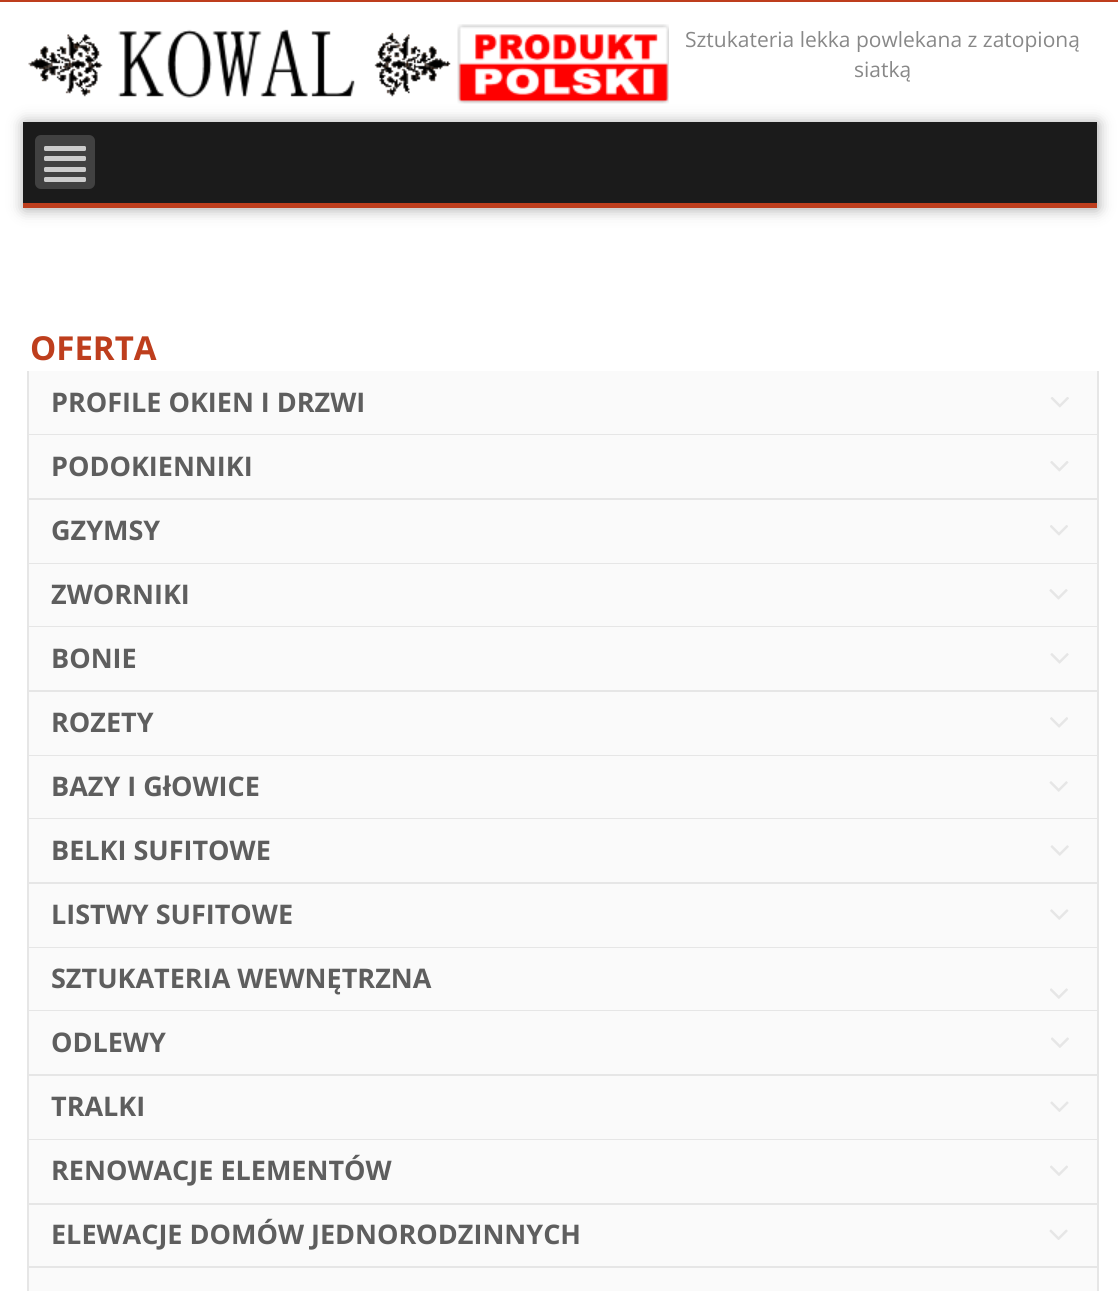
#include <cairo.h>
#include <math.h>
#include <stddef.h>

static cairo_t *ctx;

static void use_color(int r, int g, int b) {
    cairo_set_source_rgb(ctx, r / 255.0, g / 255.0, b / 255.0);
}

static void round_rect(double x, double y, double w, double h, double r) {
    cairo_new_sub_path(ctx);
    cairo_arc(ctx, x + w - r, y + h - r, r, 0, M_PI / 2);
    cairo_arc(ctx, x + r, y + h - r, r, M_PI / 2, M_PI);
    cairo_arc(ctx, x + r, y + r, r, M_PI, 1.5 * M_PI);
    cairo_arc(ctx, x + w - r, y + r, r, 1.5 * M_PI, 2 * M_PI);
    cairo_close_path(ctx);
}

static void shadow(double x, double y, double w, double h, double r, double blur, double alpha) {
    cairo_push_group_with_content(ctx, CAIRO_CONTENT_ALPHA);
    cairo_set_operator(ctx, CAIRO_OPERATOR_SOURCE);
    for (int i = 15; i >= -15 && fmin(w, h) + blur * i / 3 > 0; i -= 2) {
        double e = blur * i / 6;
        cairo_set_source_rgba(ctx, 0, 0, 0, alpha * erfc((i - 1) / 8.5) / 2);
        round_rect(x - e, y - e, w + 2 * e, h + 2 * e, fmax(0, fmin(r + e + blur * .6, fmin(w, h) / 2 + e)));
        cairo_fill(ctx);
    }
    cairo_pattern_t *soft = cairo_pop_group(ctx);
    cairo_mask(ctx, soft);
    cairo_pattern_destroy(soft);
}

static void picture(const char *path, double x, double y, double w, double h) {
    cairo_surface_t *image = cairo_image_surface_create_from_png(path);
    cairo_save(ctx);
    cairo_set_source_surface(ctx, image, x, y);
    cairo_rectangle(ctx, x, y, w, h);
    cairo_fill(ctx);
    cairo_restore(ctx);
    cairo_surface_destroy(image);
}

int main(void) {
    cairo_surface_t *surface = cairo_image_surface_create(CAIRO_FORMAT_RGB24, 1118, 1291);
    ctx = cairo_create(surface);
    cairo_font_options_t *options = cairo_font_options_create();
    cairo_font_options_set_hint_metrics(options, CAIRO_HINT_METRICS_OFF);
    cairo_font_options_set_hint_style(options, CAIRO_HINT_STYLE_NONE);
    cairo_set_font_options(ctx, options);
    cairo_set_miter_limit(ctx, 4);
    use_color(255, 255, 255);
    cairo_paint(ctx);
    use_color(190, 62, 29);
    cairo_rectangle(ctx, 0, 0, 1118, 2);
    cairo_fill(ctx);
    picture("img1.png", 28, 29, 423, 69);
    picture("img2.png", 457, 24, 212, 80);
    cairo_select_font_face(ctx, "Open Sans", CAIRO_FONT_SLANT_NORMAL, CAIRO_FONT_WEIGHT_NORMAL);
    cairo_set_font_size(ctx, 21);
    use_color(136, 136, 136);
    cairo_move_to(ctx, 685, 47);
    cairo_show_text(ctx, "Sztukateria lekka powlekana z zatopioną");
    cairo_move_to(ctx, 854, 77);
    cairo_show_text(ctx, "siatką");
    use_color(27, 27, 27);
    shadow(24, 123, 1074, 86, 0, 7.5, 0.4);
    use_color(27, 27, 27);
    cairo_rectangle(ctx, 23, 122, 1074, 81);
    cairo_fill(ctx);
    use_color(190, 62, 29);
    cairo_rectangle(ctx, 23, 203, 1074, 5);
    cairo_fill(ctx);
    use_color(65, 65, 65);
    round_rect(35, 135, 60, 54, 6);
    cairo_fill(ctx);
    use_color(204, 204, 204);
    round_rect(44, 146, 42, 5, 1.5);
    cairo_fill(ctx);
    round_rect(44, 156, 42, 5, 1.5);
    cairo_fill(ctx);
    round_rect(44, 167, 42, 5, 1.5);
    cairo_fill(ctx);
    round_rect(44, 177, 42, 5, 1.5);
    cairo_fill(ctx);
    cairo_select_font_face(ctx, "Open Sans", CAIRO_FONT_SLANT_NORMAL, CAIRO_FONT_WEIGHT_BOLD);
    cairo_set_font_size(ctx, 33);
    use_color(190, 62, 29);
    cairo_move_to(ctx, 30, 360);
    cairo_show_text(ctx, "OFERTA");
    use_color(250, 250, 250);
    cairo_rectangle(ctx, 29, 371, 1068, 63);
    cairo_fill(ctx);
    use_color(230, 230, 230);
    cairo_rectangle(ctx, 1097, 371, 2, 920);
    cairo_fill(ctx);
    cairo_rectangle(ctx, 27, 434, 1071, 1);
    cairo_fill(ctx);
    cairo_rectangle(ctx, 27, 371, 2, 64);
    cairo_fill(ctx);
    cairo_set_font_size(ctx, 27);
    use_color(94, 94, 94);
    cairo_move_to(ctx, 51, 412);
    cairo_show_text(ctx, "PROFILE OKIEN I DRZWI");
    picture("img3.png", 1050, 397, 19, 11);
    use_color(250, 250, 250);
    cairo_rectangle(ctx, 29, 435, 1068, 63);
    cairo_fill(ctx);
    use_color(230, 230, 230);
    cairo_rectangle(ctx, 27, 498, 1071, 2);
    cairo_fill(ctx);
    cairo_rectangle(ctx, 27, 435, 2, 65);
    cairo_fill(ctx);
    use_color(94, 94, 94);
    cairo_move_to(ctx, 51, 476);
    cairo_show_text(ctx, "PODOKIENNIKI");
    picture("img4.png", 1050, 461, 19, 11);
    use_color(250, 250, 250);
    cairo_rectangle(ctx, 29, 500, 1068, 63);
    cairo_fill(ctx);
    use_color(230, 230, 230);
    cairo_rectangle(ctx, 27, 563, 1071, 1);
    cairo_fill(ctx);
    cairo_rectangle(ctx, 27, 500, 2, 64);
    cairo_fill(ctx);
    use_color(94, 94, 94);
    cairo_move_to(ctx, 51, 540);
    cairo_show_text(ctx, "GZYMSY");
    picture("img5.png", 1050, 525, 18, 11);
    use_color(250, 250, 250);
    cairo_rectangle(ctx, 29, 564, 1068, 62);
    cairo_fill(ctx);
    use_color(230, 230, 230);
    cairo_rectangle(ctx, 27, 626, 1071, 1);
    cairo_fill(ctx);
    cairo_rectangle(ctx, 27, 564, 2, 63);
    cairo_fill(ctx);
    use_color(94, 94, 94);
    cairo_move_to(ctx, 51, 604);
    cairo_show_text(ctx, "ZWORNIKI");
    picture("img6.png", 1049, 589, 19, 11);
    use_color(250, 250, 250);
    cairo_rectangle(ctx, 29, 627, 1068, 63);
    cairo_fill(ctx);
    use_color(230, 230, 230);
    cairo_rectangle(ctx, 27, 690, 1071, 2);
    cairo_fill(ctx);
    cairo_rectangle(ctx, 27, 627, 2, 65);
    cairo_fill(ctx);
    use_color(94, 94, 94);
    cairo_move_to(ctx, 51, 668);
    cairo_show_text(ctx, "BONIE");
    picture("img7.png", 1050, 653, 19, 11);
    use_color(250, 250, 250);
    cairo_rectangle(ctx, 29, 692, 1068, 63);
    cairo_fill(ctx);
    use_color(230, 230, 230);
    cairo_rectangle(ctx, 27, 755, 1071, 1);
    cairo_fill(ctx);
    cairo_rectangle(ctx, 27, 692, 2, 64);
    cairo_fill(ctx);
    use_color(94, 94, 94);
    cairo_move_to(ctx, 51, 732);
    cairo_show_text(ctx, "ROZETY");
    picture("img8.png", 1050, 717, 18, 11);
    use_color(250, 250, 250);
    cairo_rectangle(ctx, 29, 756, 1068, 62);
    cairo_fill(ctx);
    use_color(230, 230, 230);
    cairo_rectangle(ctx, 27, 818, 1071, 1);
    cairo_fill(ctx);
    cairo_rectangle(ctx, 27, 756, 2, 63);
    cairo_fill(ctx);
    use_color(94, 94, 94);
    cairo_move_to(ctx, 51, 796);
    cairo_show_text(ctx, "BAZY I GłOWICE");
    picture("img9.png", 1049, 781, 19, 11);
    use_color(250, 250, 250);
    cairo_rectangle(ctx, 29, 819, 1068, 63);
    cairo_fill(ctx);
    use_color(230, 230, 230);
    cairo_rectangle(ctx, 27, 882, 1071, 2);
    cairo_fill(ctx);
    cairo_rectangle(ctx, 27, 819, 2, 65);
    cairo_fill(ctx);
    use_color(94, 94, 94);
    cairo_move_to(ctx, 51, 860);
    cairo_show_text(ctx, "BELKI SUFITOWE");
    picture("img10.png", 1050, 845, 19, 11);
    use_color(250, 250, 250);
    cairo_rectangle(ctx, 29, 884, 1068, 63);
    cairo_fill(ctx);
    use_color(230, 230, 230);
    cairo_rectangle(ctx, 27, 947, 1071, 1);
    cairo_fill(ctx);
    cairo_rectangle(ctx, 27, 884, 2, 64);
    cairo_fill(ctx);
    use_color(94, 94, 94);
    cairo_move_to(ctx, 51, 924);
    cairo_show_text(ctx, "LISTWY SUFITOWE");
    picture("img11.png", 1050, 909, 19, 11);
    use_color(250, 250, 250);
    cairo_rectangle(ctx, 29, 948, 1068, 62);
    cairo_fill(ctx);
    use_color(230, 230, 230);
    cairo_rectangle(ctx, 27, 1010, 1071, 1);
    cairo_fill(ctx);
    cairo_rectangle(ctx, 27, 948, 2, 63);
    cairo_fill(ctx);
    use_color(94, 94, 94);
    cairo_move_to(ctx, 51, 988);
    cairo_show_text(ctx, "SZTUKATERIA WEWNĘTRZNA");
    picture("img12.png", 1050, 988, 18, 11);
    use_color(250, 250, 250);
    cairo_rectangle(ctx, 29, 1011, 1068, 63);
    cairo_fill(ctx);
    use_color(230, 230, 230);
    cairo_rectangle(ctx, 27, 1074, 1071, 2);
    cairo_fill(ctx);
    cairo_rectangle(ctx, 27, 1011, 2, 65);
    cairo_fill(ctx);
    use_color(94, 94, 94);
    cairo_move_to(ctx, 51, 1052);
    cairo_show_text(ctx, "ODLEWY");
    picture("img13.png", 1051, 1037, 18, 11);
    use_color(250, 250, 250);
    cairo_rectangle(ctx, 29, 1076, 1068, 63);
    cairo_fill(ctx);
    use_color(230, 230, 230);
    cairo_rectangle(ctx, 27, 1139, 1071, 1);
    cairo_fill(ctx);
    cairo_rectangle(ctx, 27, 1076, 2, 64);
    cairo_fill(ctx);
    use_color(94, 94, 94);
    cairo_move_to(ctx, 51, 1116);
    cairo_show_text(ctx, "TRALKI");
    picture("img14.png", 1050, 1101, 19, 11);
    use_color(250, 250, 250);
    cairo_rectangle(ctx, 29, 1140, 1068, 63);
    cairo_fill(ctx);
    use_color(230, 230, 230);
    cairo_rectangle(ctx, 27, 1203, 1071, 2);
    cairo_fill(ctx);
    cairo_rectangle(ctx, 27, 1140, 2, 65);
    cairo_fill(ctx);
    use_color(94, 94, 94);
    cairo_move_to(ctx, 51, 1180);
    cairo_show_text(ctx, "RENOWACJE ELEMENTÓW");
    picture("img15.png", 1050, 1165, 18, 11);
    use_color(250, 250, 250);
    cairo_rectangle(ctx, 29, 1205, 1068, 61);
    cairo_fill(ctx);
    use_color(230, 230, 230);
    cairo_rectangle(ctx, 27, 1266, 1071, 2);
    cairo_fill(ctx);
    cairo_rectangle(ctx, 27, 1205, 2, 86);
    cairo_fill(ctx);
    use_color(94, 94, 94);
    cairo_move_to(ctx, 51, 1244);
    cairo_show_text(ctx, "ELEWACJE DOMÓW JEDNORODZINNYCH");
    picture("img16.png", 1049, 1229, 19, 11);
    use_color(250, 250, 250);
    cairo_rectangle(ctx, 29, 1268, 1068, 23);
    cairo_fill(ctx);
    cairo_surface_write_to_png(surface, "result.png");
    cairo_font_options_destroy(options);
    cairo_destroy(ctx);
    cairo_surface_destroy(surface);
    return 0;
}
